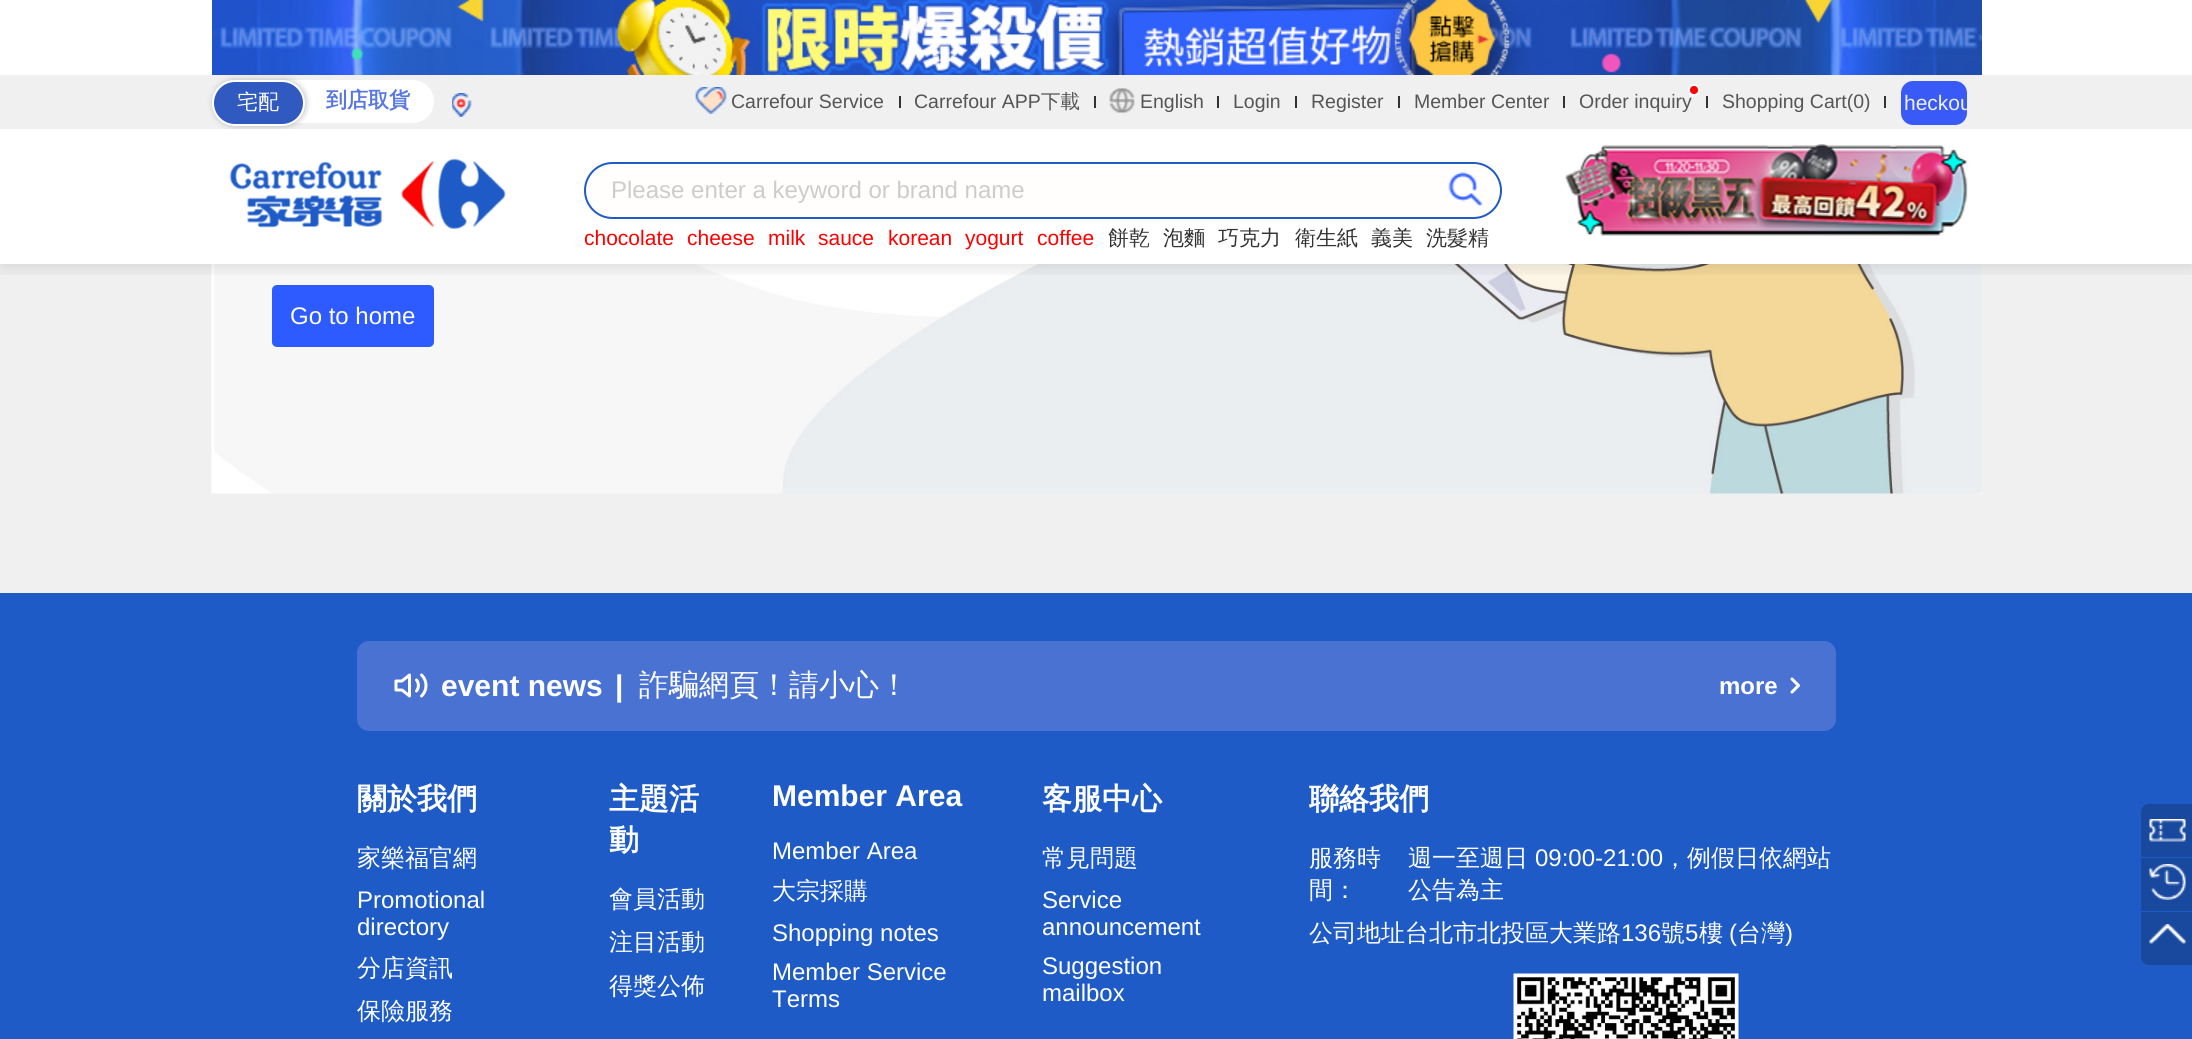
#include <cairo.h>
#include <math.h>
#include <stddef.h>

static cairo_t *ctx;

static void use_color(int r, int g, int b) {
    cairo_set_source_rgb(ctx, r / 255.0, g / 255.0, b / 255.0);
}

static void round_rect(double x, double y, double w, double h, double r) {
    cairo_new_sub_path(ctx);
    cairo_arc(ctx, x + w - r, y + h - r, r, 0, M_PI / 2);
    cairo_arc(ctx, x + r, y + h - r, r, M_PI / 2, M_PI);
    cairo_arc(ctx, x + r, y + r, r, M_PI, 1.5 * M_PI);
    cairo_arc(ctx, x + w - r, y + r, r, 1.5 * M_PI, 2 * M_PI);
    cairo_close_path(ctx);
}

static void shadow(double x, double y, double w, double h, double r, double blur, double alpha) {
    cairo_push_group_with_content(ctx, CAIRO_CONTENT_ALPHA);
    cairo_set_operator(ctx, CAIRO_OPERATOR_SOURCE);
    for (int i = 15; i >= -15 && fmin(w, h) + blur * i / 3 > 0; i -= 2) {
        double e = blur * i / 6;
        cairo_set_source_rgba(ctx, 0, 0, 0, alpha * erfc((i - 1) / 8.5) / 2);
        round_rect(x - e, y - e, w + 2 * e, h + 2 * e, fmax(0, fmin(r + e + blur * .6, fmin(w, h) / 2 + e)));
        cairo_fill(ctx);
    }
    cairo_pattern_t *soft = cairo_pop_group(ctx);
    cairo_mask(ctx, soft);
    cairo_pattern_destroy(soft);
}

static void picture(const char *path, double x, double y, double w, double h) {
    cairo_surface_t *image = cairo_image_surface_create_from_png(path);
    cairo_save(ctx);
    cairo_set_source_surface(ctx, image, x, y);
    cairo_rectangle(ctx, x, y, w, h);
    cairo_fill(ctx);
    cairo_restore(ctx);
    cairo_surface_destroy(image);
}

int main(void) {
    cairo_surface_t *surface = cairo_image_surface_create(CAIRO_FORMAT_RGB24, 2192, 1039);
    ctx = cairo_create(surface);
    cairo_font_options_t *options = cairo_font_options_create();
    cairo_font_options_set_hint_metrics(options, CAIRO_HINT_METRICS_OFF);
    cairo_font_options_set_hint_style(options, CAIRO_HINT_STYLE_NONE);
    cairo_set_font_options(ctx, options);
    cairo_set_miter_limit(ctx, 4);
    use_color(240, 240, 240);
    cairo_paint(ctx);
    use_color(255, 255, 255);
    cairo_rectangle(ctx, 0, 0, 2192, 264);
    cairo_fill(ctx);
    picture("img8.png", 211, 264, 1771, 230);
    use_color(46, 91, 255);
    round_rect(272, 285, 162, 62, 5);
    cairo_fill(ctx);
    cairo_save(ctx);
    cairo_rectangle(ctx, 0, 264, 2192, 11);
    cairo_clip(ctx);
    use_color(0, 0, 0);
    shadow(0, 5, 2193, 264, 0, 7.5, 0.1);
    cairo_restore(ctx);
    picture("img1.png", 212, 0, 1770, 75);
    use_color(240, 240, 240);
    cairo_rectangle(ctx, 0, 75, 2192, 54);
    cairo_fill(ctx);
    use_color(255, 255, 255);
    round_rect(212, 80, 222, 43, 21.5);
    cairo_fill(ctx);
    use_color(0, 0, 0);
    shadow(213, 80, 93, 46, 23, 3, 0.25);
    use_color(48, 90, 191);
    round_rect(213, 81, 91, 44, 22);
    cairo_fill_preserve(ctx);
    use_color(255, 255, 255);
    cairo_stroke(ctx);
    cairo_select_font_face(ctx, "WenQuanYi Zen Hei Medium", CAIRO_FONT_SLANT_NORMAL, CAIRO_FONT_WEIGHT_NORMAL);
    cairo_set_font_size(ctx, 21);
    cairo_move_to(ctx, 237, 109);
    cairo_show_text(ctx, "宅配");
    cairo_select_font_face(ctx, "WenQuanYi Zen Hei", CAIRO_FONT_SLANT_NORMAL, CAIRO_FONT_WEIGHT_BOLD);
    use_color(88, 119, 225);
    cairo_move_to(ctx, 326, 107);
    cairo_show_text(ctx, "到店取貨");
    picture("img2.png", 452, 93, 20, 24);
    picture("img3.png", 695, 87, 32, 27);
    cairo_select_font_face(ctx, "Liberation Sans", CAIRO_FONT_SLANT_NORMAL, CAIRO_FONT_WEIGHT_NORMAL);
    cairo_set_font_size(ctx, 19.5);
    use_color(85, 85, 85);
    cairo_move_to(ctx, 731, 108);
    cairo_show_text(ctx, "Carrefour Service");
    use_color(51, 51, 51);
    cairo_rectangle(ctx, 899, 96, 2, 12);
    cairo_fill(ctx);
    use_color(85, 85, 85);
    cairo_move_to(ctx, 914, 108);
    cairo_show_text(ctx, "Carrefour APP");
    cairo_select_font_face(ctx, "WenQuanYi Zen Hei Medium", CAIRO_FONT_SLANT_NORMAL, CAIRO_FONT_WEIGHT_NORMAL);
    cairo_move_to(ctx, 1041, 108);
    cairo_show_text(ctx, "下載");
    use_color(51, 51, 51);
    cairo_rectangle(ctx, 1094, 96, 2, 12);
    cairo_fill(ctx);
    picture("img4.png", 1109, 88, 26, 25);
    cairo_select_font_face(ctx, "Liberation Sans", CAIRO_FONT_SLANT_NORMAL, CAIRO_FONT_WEIGHT_NORMAL);
    use_color(85, 85, 85);
    cairo_move_to(ctx, 1140, 108);
    cairo_show_text(ctx, "English");
    use_color(51, 51, 51);
    cairo_rectangle(ctx, 1217, 96, 2, 12);
    cairo_fill(ctx);
    use_color(85, 85, 85);
    cairo_move_to(ctx, 1233, 108);
    cairo_show_text(ctx, "Login");
    use_color(51, 51, 51);
    cairo_rectangle(ctx, 1295, 96, 2, 12);
    cairo_fill(ctx);
    use_color(85, 85, 85);
    cairo_move_to(ctx, 1311, 108);
    cairo_show_text(ctx, "Register");
    use_color(51, 51, 51);
    cairo_rectangle(ctx, 1398, 96, 2, 12);
    cairo_fill(ctx);
    use_color(85, 85, 85);
    cairo_move_to(ctx, 1414, 108);
    cairo_show_text(ctx, "Member Center");
    use_color(51, 51, 51);
    cairo_rectangle(ctx, 1563, 96, 2, 12);
    cairo_fill(ctx);
    use_color(85, 85, 85);
    cairo_move_to(ctx, 1579, 108);
    cairo_show_text(ctx, "Order inquiry");
    use_color(255, 0, 0);
    cairo_new_path(ctx);
    cairo_arc(ctx, 1694, 90, 5, 0, 2 * M_PI);
    cairo_fill_preserve(ctx);
    use_color(255, 255, 255);
    cairo_stroke(ctx);
    use_color(51, 51, 51);
    cairo_rectangle(ctx, 1706, 96, 2, 12);
    cairo_fill(ctx);
    use_color(85, 85, 85);
    cairo_move_to(ctx, 1722, 108);
    cairo_show_text(ctx, "Shopping Cart(0)");
    use_color(51, 51, 51);
    cairo_rectangle(ctx, 1884, 96, 2, 12);
    cairo_fill(ctx);
    use_color(57, 90, 246);
    round_rect(1901, 81, 66, 44, 12);
    cairo_fill(ctx);
    cairo_set_font_size(ctx, 21);
    use_color(240, 240, 240);
    cairo_move_to(ctx, 1904, 110);
    cairo_show_text(ctx, "heckou");
    use_color(255, 255, 255);
    cairo_rectangle(ctx, 227, 129, 65, 2);
    cairo_fill(ctx);
    picture("img5.png", 229, 158, 277, 71);
    use_color(255, 254, 252);
    round_rect(585, 163, 916, 55, 27.5);
    cairo_fill_preserve(ctx);
    use_color(30, 91, 198);
    cairo_stroke(ctx);
    cairo_set_font_size(ctx, 24);
    use_color(204, 204, 204);
    cairo_move_to(ctx, 611, 198);
    cairo_show_text(ctx, "Please enter a keyword or brand name");
    picture("img6.png", 1448, 172, 35, 34);
    cairo_set_font_size(ctx, 21);
    use_color(255, 0, 0);
    cairo_move_to(ctx, 584, 245);
    cairo_show_text(ctx, "chocolate");
    cairo_move_to(ctx, 687, 245);
    cairo_show_text(ctx, "cheese");
    cairo_move_to(ctx, 768, 245);
    cairo_show_text(ctx, "milk");
    cairo_move_to(ctx, 818, 245);
    cairo_show_text(ctx, "sauce");
    cairo_move_to(ctx, 888, 245);
    cairo_show_text(ctx, "korean");
    cairo_move_to(ctx, 965, 245);
    cairo_show_text(ctx, "yogurt");
    cairo_move_to(ctx, 1037, 245);
    cairo_show_text(ctx, "coffee");
    cairo_select_font_face(ctx, "WenQuanYi Zen Hei Medium", CAIRO_FONT_SLANT_NORMAL, CAIRO_FONT_WEIGHT_NORMAL);
    use_color(51, 51, 51);
    cairo_move_to(ctx, 1108, 245);
    cairo_show_text(ctx, "餅乾");
    cairo_move_to(ctx, 1163, 245);
    cairo_show_text(ctx, "泡麵");
    cairo_move_to(ctx, 1218, 245);
    cairo_show_text(ctx, "巧克力");
    cairo_move_to(ctx, 1295, 245);
    cairo_show_text(ctx, "衛生紙");
    cairo_move_to(ctx, 1371, 245);
    cairo_show_text(ctx, "義美");
    cairo_move_to(ctx, 1426, 245);
    cairo_show_text(ctx, "洗髮精");
    picture("img7.png", 1565, 144, 403, 92);
    cairo_select_font_face(ctx, "Liberation Sans", CAIRO_FONT_SLANT_NORMAL, CAIRO_FONT_WEIGHT_NORMAL);
    cairo_set_font_size(ctx, 24);
    use_color(255, 255, 255);
    cairo_move_to(ctx, 290, 324);
    cairo_show_text(ctx, "Go to home");
    use_color(30, 91, 198);
    cairo_rectangle(ctx, 0, 593, 2192, 446);
    cairo_fill(ctx);
    use_color(74, 114, 211);
    round_rect(357, 641, 1479, 90, 12);
    cairo_fill(ctx);
    cairo_new_path(ctx);
    cairo_move_to(ctx, 409.5, 675);
    cairo_line_to(ctx, 402, 681);
    cairo_line_to(ctx, 396, 681);
    cairo_line_to(ctx, 396, 690);
    cairo_line_to(ctx, 402, 690);
    cairo_line_to(ctx, 409.5, 696);
    cairo_close_path(ctx);
    cairo_move_to(ctx, 421.5, 675);
    cairo_curve_to(ctx, 427.5, 680.5, 427.5, 690.5, 421.5, 696);
    cairo_move_to(ctx, 416.5, 680);
    cairo_curve_to(ctx, 419, 683, 419, 688, 416.5, 691);
    use_color(255, 255, 255);
    cairo_set_line_width(ctx, 3);
    cairo_set_line_cap(ctx, CAIRO_LINE_CAP_ROUND);
    cairo_set_line_join(ctx, CAIRO_LINE_JOIN_ROUND);
    cairo_stroke(ctx);
    cairo_select_font_face(ctx, "Liberation Sans", CAIRO_FONT_SLANT_NORMAL, CAIRO_FONT_WEIGHT_BOLD);
    cairo_set_font_size(ctx, 30);
    cairo_move_to(ctx, 441, 696);
    cairo_show_text(ctx, "event news");
    cairo_move_to(ctx, 615, 696);
    cairo_show_text(ctx, "|");
    cairo_select_font_face(ctx, "WenQuanYi Zen Hei Medium", CAIRO_FONT_SLANT_NORMAL, CAIRO_FONT_WEIGHT_NORMAL);
    cairo_move_to(ctx, 639, 695);
    cairo_show_text(ctx, "詐騙網頁！請小心！");
    cairo_select_font_face(ctx, "Liberation Sans", CAIRO_FONT_SLANT_NORMAL, CAIRO_FONT_WEIGHT_BOLD);
    cairo_set_font_size(ctx, 24);
    cairo_move_to(ctx, 1719, 694);
    cairo_show_text(ctx, "more");
    cairo_new_path(ctx);
    cairo_move_to(ctx, 1792, 679);
    cairo_line_to(ctx, 1798.5, 685.5);
    cairo_line_to(ctx, 1792, 692);
    cairo_stroke(ctx);
    cairo_select_font_face(ctx, "WenQuanYi Zen Hei", CAIRO_FONT_SLANT_NORMAL, CAIRO_FONT_WEIGHT_BOLD);
    cairo_set_font_size(ctx, 30);
    cairo_move_to(ctx, 357, 809);
    cairo_show_text(ctx, "關於我們");
    cairo_select_font_face(ctx, "WenQuanYi Zen Hei Medium", CAIRO_FONT_SLANT_NORMAL, CAIRO_FONT_WEIGHT_NORMAL);
    cairo_set_font_size(ctx, 24);
    cairo_move_to(ctx, 357, 866);
    cairo_show_text(ctx, "家樂福官網");
    cairo_select_font_face(ctx, "Liberation Sans", CAIRO_FONT_SLANT_NORMAL, CAIRO_FONT_WEIGHT_NORMAL);
    cairo_move_to(ctx, 357, 908);
    cairo_show_text(ctx, "Promotional");
    cairo_move_to(ctx, 357, 935);
    cairo_show_text(ctx, "directory");
    cairo_select_font_face(ctx, "WenQuanYi Zen Hei Medium", CAIRO_FONT_SLANT_NORMAL, CAIRO_FONT_WEIGHT_NORMAL);
    cairo_move_to(ctx, 357, 976);
    cairo_show_text(ctx, "分店資訊");
    cairo_move_to(ctx, 357, 1019);
    cairo_show_text(ctx, "保險服務");
    cairo_select_font_face(ctx, "WenQuanYi Zen Hei", CAIRO_FONT_SLANT_NORMAL, CAIRO_FONT_WEIGHT_BOLD);
    cairo_set_font_size(ctx, 30);
    cairo_move_to(ctx, 609, 809);
    cairo_show_text(ctx, "主題活");
    cairo_move_to(ctx, 609, 850);
    cairo_show_text(ctx, "動");
    cairo_select_font_face(ctx, "WenQuanYi Zen Hei Medium", CAIRO_FONT_SLANT_NORMAL, CAIRO_FONT_WEIGHT_NORMAL);
    cairo_set_font_size(ctx, 24);
    cairo_move_to(ctx, 609, 907);
    cairo_show_text(ctx, "會員活動");
    cairo_move_to(ctx, 609, 950);
    cairo_show_text(ctx, "注目活動");
    cairo_move_to(ctx, 609, 994);
    cairo_show_text(ctx, "得獎公佈");
    cairo_select_font_face(ctx, "Liberation Sans", CAIRO_FONT_SLANT_NORMAL, CAIRO_FONT_WEIGHT_BOLD);
    cairo_set_font_size(ctx, 30);
    cairo_move_to(ctx, 772, 806);
    cairo_show_text(ctx, "Member Area");
    cairo_select_font_face(ctx, "Liberation Sans", CAIRO_FONT_SLANT_NORMAL, CAIRO_FONT_WEIGHT_NORMAL);
    cairo_set_font_size(ctx, 24);
    cairo_move_to(ctx, 772, 859);
    cairo_show_text(ctx, "Member Area");
    cairo_select_font_face(ctx, "WenQuanYi Zen Hei Medium", CAIRO_FONT_SLANT_NORMAL, CAIRO_FONT_WEIGHT_NORMAL);
    cairo_move_to(ctx, 772, 899);
    cairo_show_text(ctx, "大宗採購");
    cairo_select_font_face(ctx, "Liberation Sans", CAIRO_FONT_SLANT_NORMAL, CAIRO_FONT_WEIGHT_NORMAL);
    cairo_move_to(ctx, 772, 941);
    cairo_show_text(ctx, "Shopping notes");
    cairo_move_to(ctx, 772, 980);
    cairo_show_text(ctx, "Member Service");
    cairo_move_to(ctx, 772, 1007);
    cairo_show_text(ctx, "Terms");
    cairo_select_font_face(ctx, "WenQuanYi Zen Hei", CAIRO_FONT_SLANT_NORMAL, CAIRO_FONT_WEIGHT_BOLD);
    cairo_set_font_size(ctx, 30);
    cairo_move_to(ctx, 1042, 809);
    cairo_show_text(ctx, "客服中心");
    cairo_select_font_face(ctx, "WenQuanYi Zen Hei Medium", CAIRO_FONT_SLANT_NORMAL, CAIRO_FONT_WEIGHT_NORMAL);
    cairo_set_font_size(ctx, 24);
    cairo_move_to(ctx, 1042, 866);
    cairo_show_text(ctx, "常見問題");
    cairo_select_font_face(ctx, "Liberation Sans", CAIRO_FONT_SLANT_NORMAL, CAIRO_FONT_WEIGHT_NORMAL);
    cairo_move_to(ctx, 1042, 908);
    cairo_show_text(ctx, "Service");
    cairo_move_to(ctx, 1042, 935);
    cairo_show_text(ctx, "announcement");
    cairo_move_to(ctx, 1042, 974);
    cairo_show_text(ctx, "Suggestion");
    cairo_move_to(ctx, 1042, 1001);
    cairo_show_text(ctx, "mailbox");
    cairo_select_font_face(ctx, "WenQuanYi Zen Hei", CAIRO_FONT_SLANT_NORMAL, CAIRO_FONT_WEIGHT_BOLD);
    cairo_set_font_size(ctx, 30);
    cairo_move_to(ctx, 1309, 809);
    cairo_show_text(ctx, "聯絡我們");
    cairo_select_font_face(ctx, "WenQuanYi Zen Hei Medium", CAIRO_FONT_SLANT_NORMAL, CAIRO_FONT_WEIGHT_NORMAL);
    cairo_set_font_size(ctx, 24);
    cairo_move_to(ctx, 1309, 866);
    cairo_show_text(ctx, "服務時");
    cairo_move_to(ctx, 1309, 898);
    cairo_show_text(ctx, "間：");
    cairo_move_to(ctx, 1408, 866);
    cairo_show_text(ctx, "週一至週日");
    cairo_select_font_face(ctx, "Liberation Sans", CAIRO_FONT_SLANT_NORMAL, CAIRO_FONT_WEIGHT_NORMAL);
    cairo_move_to(ctx, 1535, 866);
    cairo_show_text(ctx, "09:00-21:00");
    cairo_select_font_face(ctx, "WenQuanYi Zen Hei Medium", CAIRO_FONT_SLANT_NORMAL, CAIRO_FONT_WEIGHT_NORMAL);
    cairo_move_to(ctx, 1663, 866);
    cairo_show_text(ctx, "，例假日依網站");
    cairo_move_to(ctx, 1408, 898);
    cairo_show_text(ctx, "公告為主");
    cairo_move_to(ctx, 1309, 941);
    cairo_show_text(ctx, "公司地址台北市北投區大業路");
    cairo_select_font_face(ctx, "Liberation Sans", CAIRO_FONT_SLANT_NORMAL, CAIRO_FONT_WEIGHT_NORMAL);
    cairo_move_to(ctx, 1621, 941);
    cairo_show_text(ctx, "136");
    cairo_select_font_face(ctx, "WenQuanYi Zen Hei Medium", CAIRO_FONT_SLANT_NORMAL, CAIRO_FONT_WEIGHT_NORMAL);
    cairo_move_to(ctx, 1661, 941);
    cairo_show_text(ctx, "號");
    cairo_select_font_face(ctx, "Liberation Sans", CAIRO_FONT_SLANT_NORMAL, CAIRO_FONT_WEIGHT_NORMAL);
    cairo_move_to(ctx, 1685, 941);
    cairo_show_text(ctx, "5");
    cairo_select_font_face(ctx, "WenQuanYi Zen Hei Medium", CAIRO_FONT_SLANT_NORMAL, CAIRO_FONT_WEIGHT_NORMAL);
    cairo_move_to(ctx, 1699, 941);
    cairo_show_text(ctx, "樓");
    cairo_select_font_face(ctx, "Liberation Sans", CAIRO_FONT_SLANT_NORMAL, CAIRO_FONT_WEIGHT_NORMAL);
    cairo_move_to(ctx, 1729, 941);
    cairo_show_text(ctx, "(");
    cairo_select_font_face(ctx, "WenQuanYi Zen Hei Medium", CAIRO_FONT_SLANT_NORMAL, CAIRO_FONT_WEIGHT_NORMAL);
    cairo_move_to(ctx, 1737, 941);
    cairo_show_text(ctx, "台灣");
    cairo_select_font_face(ctx, "Liberation Sans", CAIRO_FONT_SLANT_NORMAL, CAIRO_FONT_WEIGHT_NORMAL);
    cairo_move_to(ctx, 1785, 941);
    cairo_show_text(ctx, ")");
    picture("img9.png", 1513, 973, 226, 66);
    use_color(24, 73, 158);
    cairo_new_path(ctx);
    cairo_move_to(ctx, 2149, 804);
    cairo_line_to(ctx, 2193, 804);
    cairo_line_to(ctx, 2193, 857);
    cairo_line_to(ctx, 2141, 857);
    cairo_line_to(ctx, 2141, 812);
    cairo_curve_to(ctx, 2141, 807.5, 2144.5, 804, 2149, 804);
    cairo_close_path(ctx);
    cairo_fill(ctx);
    picture("img10.png", 2149, 819, 37, 23);
    cairo_rectangle(ctx, 2141, 858, 51, 53);
    cairo_fill(ctx);
    picture("img11.png", 2149, 864, 37, 36);
    cairo_new_path(ctx);
    cairo_move_to(ctx, 2141, 912);
    cairo_line_to(ctx, 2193, 912);
    cairo_line_to(ctx, 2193, 965);
    cairo_line_to(ctx, 2149, 965);
    cairo_curve_to(ctx, 2144.5, 965, 2141, 961.5, 2141, 957);
    cairo_close_path(ctx);
    cairo_fill(ctx);
    picture("img12.png", 2149, 924, 37, 20);
    cairo_surface_write_to_png(surface, "result.png");
    cairo_font_options_destroy(options);
    cairo_destroy(ctx);
    cairo_surface_destroy(surface);
    return 0;
}
